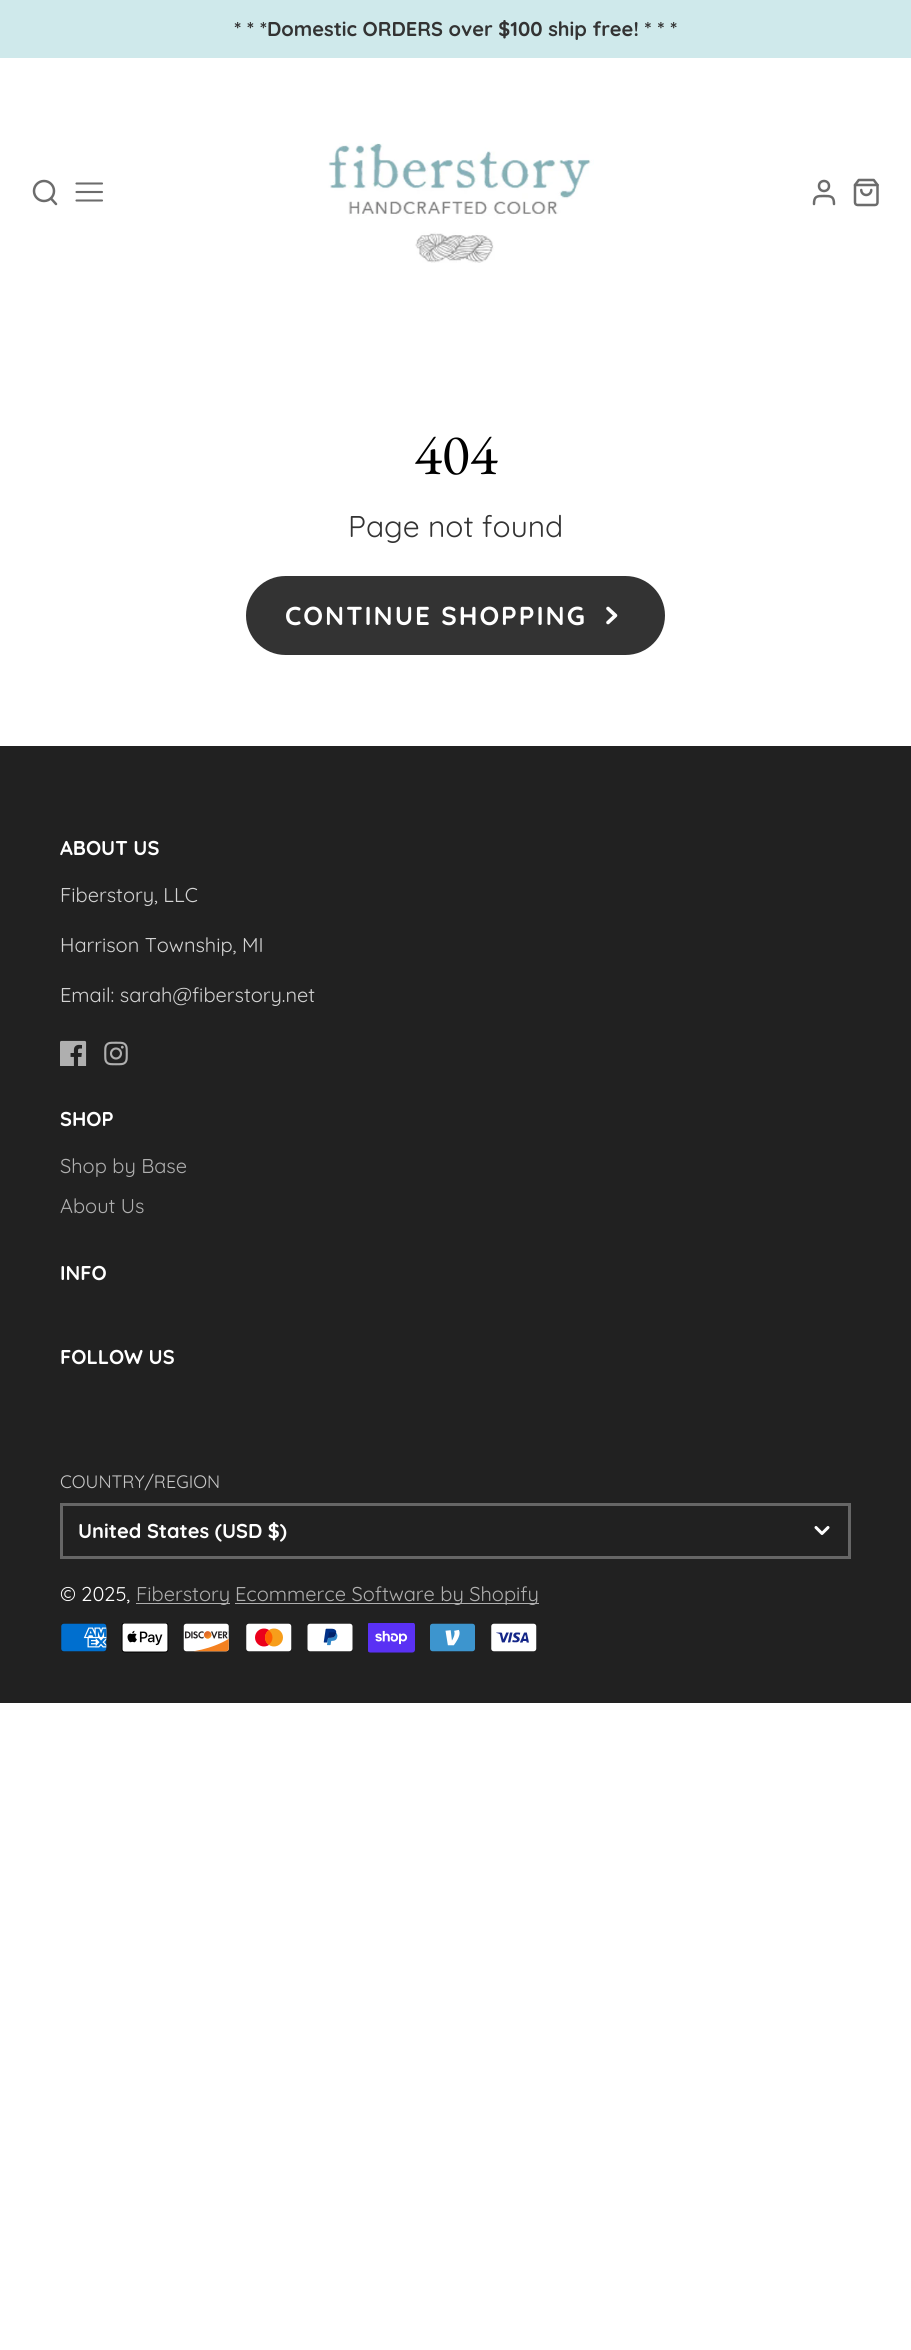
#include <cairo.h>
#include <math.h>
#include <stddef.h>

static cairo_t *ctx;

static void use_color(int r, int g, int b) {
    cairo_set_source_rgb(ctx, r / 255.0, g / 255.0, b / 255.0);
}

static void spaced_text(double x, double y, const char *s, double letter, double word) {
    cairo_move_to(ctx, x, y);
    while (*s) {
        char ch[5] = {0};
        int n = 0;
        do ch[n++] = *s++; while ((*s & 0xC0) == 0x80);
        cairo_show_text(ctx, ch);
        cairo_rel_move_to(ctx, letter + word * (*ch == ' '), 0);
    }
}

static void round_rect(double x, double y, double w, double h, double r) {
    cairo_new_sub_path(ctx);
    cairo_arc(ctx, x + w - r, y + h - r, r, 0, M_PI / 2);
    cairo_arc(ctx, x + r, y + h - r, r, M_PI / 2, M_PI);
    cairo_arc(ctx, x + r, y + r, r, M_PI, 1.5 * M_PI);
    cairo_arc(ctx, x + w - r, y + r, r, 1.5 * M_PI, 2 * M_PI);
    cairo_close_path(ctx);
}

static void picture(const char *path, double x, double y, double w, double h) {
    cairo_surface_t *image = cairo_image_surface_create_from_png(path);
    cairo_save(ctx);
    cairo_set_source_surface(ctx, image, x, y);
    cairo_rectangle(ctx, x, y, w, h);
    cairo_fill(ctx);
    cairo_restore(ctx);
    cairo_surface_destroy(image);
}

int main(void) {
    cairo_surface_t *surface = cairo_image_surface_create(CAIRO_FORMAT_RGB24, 911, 2350);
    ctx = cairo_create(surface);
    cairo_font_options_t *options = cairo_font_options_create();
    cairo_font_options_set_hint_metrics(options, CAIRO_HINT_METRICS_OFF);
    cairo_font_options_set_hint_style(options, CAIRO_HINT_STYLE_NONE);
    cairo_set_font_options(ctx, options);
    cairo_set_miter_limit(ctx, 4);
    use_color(255, 255, 255);
    cairo_paint(ctx);
    use_color(207, 233, 235);
    cairo_rectangle(ctx, 0, 0, 911, 58);
    cairo_fill(ctx);
    cairo_select_font_face(ctx, "Quicksand", CAIRO_FONT_SLANT_NORMAL, CAIRO_FONT_WEIGHT_BOLD);
    cairo_set_font_size(ctx, 20);
    use_color(51, 51, 51);
    cairo_move_to(ctx, 234, 36);
    cairo_show_text(ctx, "* * *Domestic ORDERS over $100 ship free! * * *");
    cairo_new_path(ctx);
    cairo_arc(ctx, 44, 191, 10, 0, 2 * M_PI);
    use_color(108, 108, 108);
    cairo_set_line_width(ctx, 2.5);
    cairo_stroke(ctx);
    cairo_new_path(ctx);
    cairo_move_to(ctx, 56, 204);
    cairo_line_to(ctx, 51, 198.5);
    cairo_set_line_cap(ctx, CAIRO_LINE_CAP_ROUND);
    cairo_set_line_join(ctx, CAIRO_LINE_JOIN_ROUND);
    cairo_stroke(ctx);
    cairo_new_path(ctx);
    cairo_move_to(ctx, 76.5, 192);
    cairo_line_to(ctx, 102, 192);
    cairo_move_to(ctx, 76.5, 183.5);
    cairo_line_to(ctx, 102, 183.5);
    cairo_move_to(ctx, 76.5, 200.5);
    cairo_line_to(ctx, 102, 200.5);
    cairo_set_line_width(ctx, 2.1);
    cairo_stroke(ctx);
    picture("img1.png", 328, 143, 266, 120);
    cairo_arc(ctx, 824, 186, 5, 0, 2 * M_PI);
    cairo_set_line_width(ctx, 2.5);
    cairo_set_line_cap(ctx, CAIRO_LINE_CAP_BUTT);
    cairo_set_line_join(ctx, CAIRO_LINE_JOIN_MITER);
    cairo_stroke(ctx);
    cairo_new_path(ctx);
    cairo_move_to(ctx, 834, 204);
    cairo_curve_to(ctx, 834, 196, 830.5, 196, 824, 196);
    cairo_curve_to(ctx, 817, 196, 814, 196, 814, 204);
    cairo_set_line_cap(ctx, CAIRO_LINE_CAP_ROUND);
    cairo_set_line_join(ctx, CAIRO_LINE_JOIN_ROUND);
    cairo_stroke(ctx);
    picture("img2.png", 853, 178, 26, 29);
    cairo_select_font_face(ctx, "EB Garamond", CAIRO_FONT_SLANT_NORMAL, CAIRO_FONT_WEIGHT_NORMAL);
    cairo_set_font_size(ctx, 58);
    use_color(0, 0, 0);
    cairo_move_to(ctx, 414, 474);
    cairo_show_text(ctx, "404");
    cairo_select_font_face(ctx, "Quicksand", CAIRO_FONT_SLANT_NORMAL, CAIRO_FONT_WEIGHT_NORMAL);
    cairo_set_font_size(ctx, 30);
    use_color(51, 51, 51);
    cairo_move_to(ctx, 348, 537);
    cairo_show_text(ctx, "Page not found");
    round_rect(246, 576, 419, 79, 39.5);
    cairo_fill(ctx);
    cairo_select_font_face(ctx, "Quicksand", CAIRO_FONT_SLANT_NORMAL, CAIRO_FONT_WEIGHT_BOLD);
    cairo_set_font_size(ctx, 26);
    use_color(255, 255, 255);
    spaced_text(285, 625, "CONTINUE SHOPPING", 2, 0);
    cairo_new_path(ctx);
    cairo_move_to(ctx, 608, 622.5);
    cairo_line_to(ctx, 615.5, 615.5);
    cairo_line_to(ctx, 608, 608.5);
    cairo_set_line_width(ctx, 3.6);
    cairo_stroke(ctx);
    use_color(33, 33, 33);
    cairo_rectangle(ctx, 0, 746, 911, 957);
    cairo_fill(ctx);
    cairo_set_font_size(ctx, 20);
    use_color(255, 255, 255);
    cairo_move_to(ctx, 60, 855);
    cairo_show_text(ctx, "ABOUT US");
    cairo_select_font_face(ctx, "Quicksand", CAIRO_FONT_SLANT_NORMAL, CAIRO_FONT_WEIGHT_NORMAL);
    use_color(211, 211, 211);
    cairo_move_to(ctx, 60, 902);
    cairo_show_text(ctx, "Fiberstory, LLC");
    cairo_move_to(ctx, 60, 952);
    cairo_show_text(ctx, "Harrison Township, MI");
    cairo_move_to(ctx, 60, 1002);
    cairo_show_text(ctx, "Email: sarah@fiberstory.net");
    picture("img3.png", 60, 1040, 27, 26);
    picture("img4.png", 104, 1041, 24, 25);
    cairo_select_font_face(ctx, "Quicksand", CAIRO_FONT_SLANT_NORMAL, CAIRO_FONT_WEIGHT_BOLD);
    use_color(255, 255, 255);
    cairo_move_to(ctx, 60, 1126);
    cairo_show_text(ctx, "SHOP");
    cairo_select_font_face(ctx, "Quicksand", CAIRO_FONT_SLANT_NORMAL, CAIRO_FONT_WEIGHT_NORMAL);
    use_color(175, 175, 175);
    cairo_move_to(ctx, 60, 1173);
    cairo_show_text(ctx, "Shop by Base");
    cairo_move_to(ctx, 60, 1213);
    cairo_show_text(ctx, "About Us");
    cairo_select_font_face(ctx, "Quicksand", CAIRO_FONT_SLANT_NORMAL, CAIRO_FONT_WEIGHT_BOLD);
    use_color(255, 255, 255);
    cairo_move_to(ctx, 60, 1280);
    cairo_show_text(ctx, "INFO");
    cairo_move_to(ctx, 60, 1364);
    cairo_show_text(ctx, "FOLLOW US");
    cairo_select_font_face(ctx, "Quicksand", CAIRO_FONT_SLANT_NORMAL, CAIRO_FONT_WEIGHT_NORMAL);
    cairo_set_font_size(ctx, 18);
    use_color(200, 200, 200);
    cairo_move_to(ctx, 60, 1488);
    cairo_show_text(ctx, "COUNTRY/REGION");
    cairo_rectangle(ctx, 61.5, 1504.5, 788, 53);
    use_color(102, 102, 102);
    cairo_set_line_width(ctx, 3);
    cairo_set_line_cap(ctx, CAIRO_LINE_CAP_BUTT);
    cairo_set_line_join(ctx, CAIRO_LINE_JOIN_MITER);
    cairo_stroke(ctx);
    cairo_select_font_face(ctx, "Quicksand", CAIRO_FONT_SLANT_NORMAL, CAIRO_FONT_WEIGHT_BOLD);
    cairo_set_font_size(ctx, 20);
    use_color(255, 255, 255);
    cairo_move_to(ctx, 78, 1538);
    cairo_show_text(ctx, "United States (USD $)");
    cairo_new_path(ctx);
    cairo_move_to(ctx, 816, 1527.5);
    cairo_line_to(ctx, 822, 1533.5);
    cairo_line_to(ctx, 828, 1527.5);
    cairo_set_line_cap(ctx, CAIRO_LINE_CAP_ROUND);
    cairo_set_line_join(ctx, CAIRO_LINE_JOIN_ROUND);
    cairo_stroke(ctx);
    cairo_select_font_face(ctx, "Quicksand", CAIRO_FONT_SLANT_NORMAL, CAIRO_FONT_WEIGHT_NORMAL);
    cairo_move_to(ctx, 60, 1601);
    cairo_show_text(ctx, "© 2025,");
    use_color(175, 175, 175);
    cairo_rectangle(ctx, 136, 1603, 94, 1);
    cairo_fill(ctx);
    cairo_move_to(ctx, 136, 1601);
    cairo_show_text(ctx, "Fiberstory");
    cairo_rectangle(ctx, 235, 1603, 304, 1);
    cairo_fill(ctx);
    cairo_move_to(ctx, 235, 1601);
    cairo_show_text(ctx, "Ecommerce Software by Shopify");
    picture("img5.png", 61, 1623, 46, 29);
    picture("img6.png", 121, 1623, 48, 30);
    picture("img7.png", 183, 1623, 46, 29);
    picture("img8.png", 246, 1623, 46, 29);
    picture("img9.png", 307, 1623, 46, 29);
    picture("img10.png", 368, 1623, 47, 30);
    picture("img11.png", 430, 1623, 45, 29);
    picture("img12.png", 491, 1623, 46, 29);
    cairo_surface_write_to_png(surface, "result.png");
    cairo_font_options_destroy(options);
    cairo_destroy(ctx);
    cairo_surface_destroy(surface);
    return 0;
}
